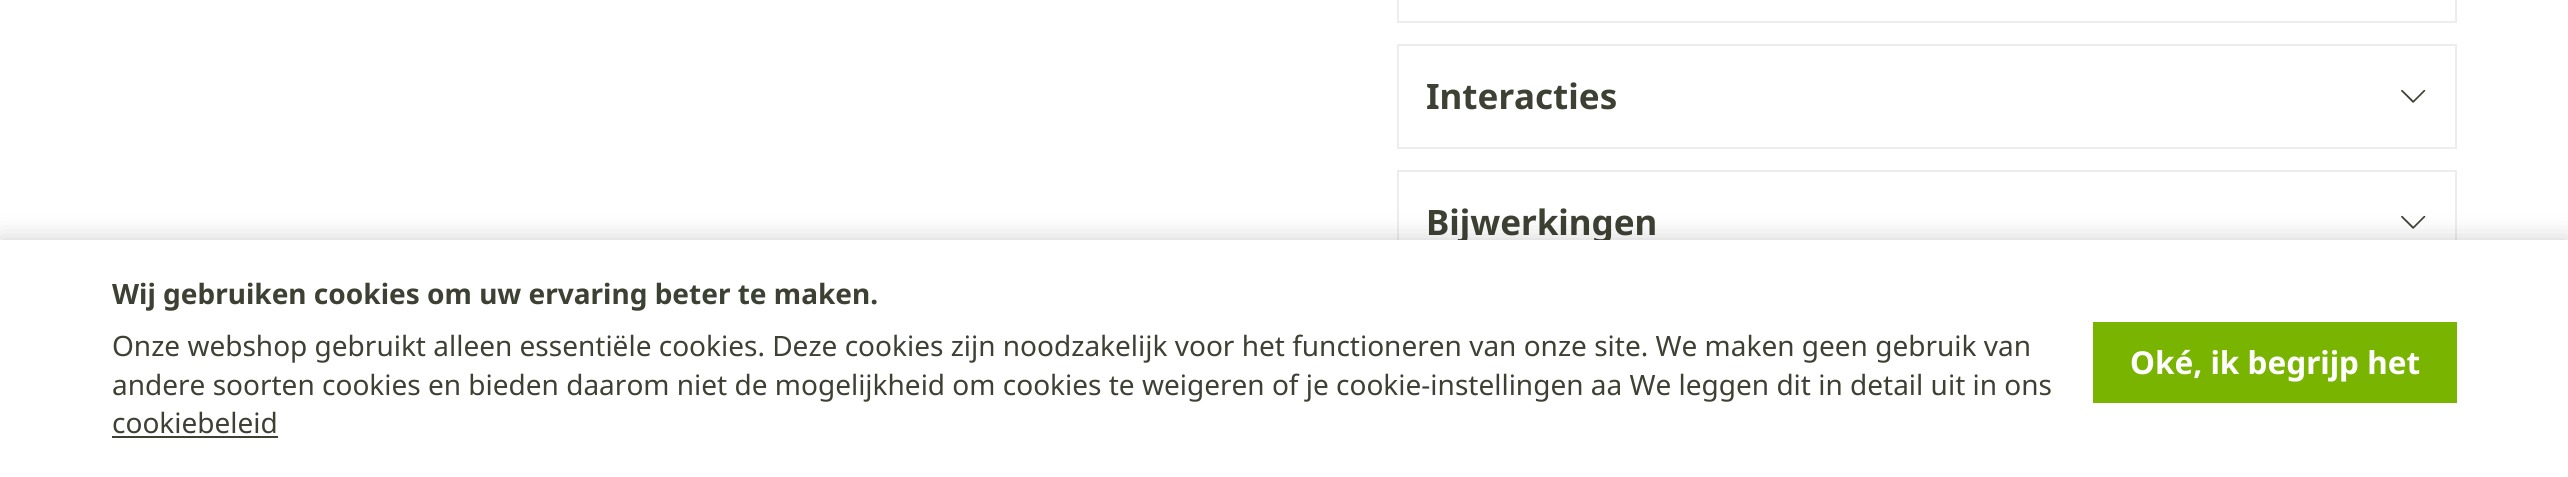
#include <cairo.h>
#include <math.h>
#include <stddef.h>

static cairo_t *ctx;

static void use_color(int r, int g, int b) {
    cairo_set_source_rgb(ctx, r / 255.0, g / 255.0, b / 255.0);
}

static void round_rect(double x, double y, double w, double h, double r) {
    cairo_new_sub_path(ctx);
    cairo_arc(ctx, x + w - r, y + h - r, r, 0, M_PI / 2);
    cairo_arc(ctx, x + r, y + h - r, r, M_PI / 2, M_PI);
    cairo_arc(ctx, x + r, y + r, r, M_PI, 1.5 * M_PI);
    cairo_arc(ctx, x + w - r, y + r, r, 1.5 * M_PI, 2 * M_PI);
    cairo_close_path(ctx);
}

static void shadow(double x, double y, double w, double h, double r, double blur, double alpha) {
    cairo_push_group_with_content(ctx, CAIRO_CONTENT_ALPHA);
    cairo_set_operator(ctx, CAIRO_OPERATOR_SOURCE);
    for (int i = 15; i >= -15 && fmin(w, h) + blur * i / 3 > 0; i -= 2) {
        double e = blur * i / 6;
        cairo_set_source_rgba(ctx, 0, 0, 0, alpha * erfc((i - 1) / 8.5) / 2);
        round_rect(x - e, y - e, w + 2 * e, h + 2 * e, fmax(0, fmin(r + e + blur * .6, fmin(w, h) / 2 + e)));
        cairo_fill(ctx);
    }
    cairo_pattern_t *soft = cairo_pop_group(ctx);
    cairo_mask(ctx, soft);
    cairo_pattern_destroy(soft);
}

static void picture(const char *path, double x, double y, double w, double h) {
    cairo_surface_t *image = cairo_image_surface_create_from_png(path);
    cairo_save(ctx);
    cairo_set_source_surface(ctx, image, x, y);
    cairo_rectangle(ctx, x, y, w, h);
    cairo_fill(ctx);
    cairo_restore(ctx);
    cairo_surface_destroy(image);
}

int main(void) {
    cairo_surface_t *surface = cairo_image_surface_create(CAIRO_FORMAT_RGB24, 2568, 477);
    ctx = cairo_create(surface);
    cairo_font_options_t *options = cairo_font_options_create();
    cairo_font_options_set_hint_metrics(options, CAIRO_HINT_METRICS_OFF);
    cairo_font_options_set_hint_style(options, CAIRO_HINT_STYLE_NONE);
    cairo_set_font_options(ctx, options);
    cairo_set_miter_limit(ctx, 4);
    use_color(255, 255, 255);
    cairo_paint(ctx);
    cairo_rectangle(ctx, 1398, -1, 1058, 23);
    use_color(237, 238, 235);
    cairo_stroke(ctx);
    cairo_rectangle(ctx, 1398, 45, 1058, 103);
    cairo_stroke(ctx);
    cairo_select_font_face(ctx, "Noto Sans", CAIRO_FONT_SLANT_NORMAL, CAIRO_FONT_WEIGHT_BOLD);
    cairo_set_font_size(ctx, 35);
    use_color(61, 65, 51);
    cairo_move_to(ctx, 1426, 109);
    cairo_show_text(ctx, "Interacties");
    picture("img1.png", 2401, 89, 25, 14);
    cairo_rectangle(ctx, 1398, 171, 1058, 103);
    use_color(237, 238, 235);
    cairo_stroke(ctx);
    use_color(61, 65, 51);
    cairo_move_to(ctx, 1426, 235);
    cairo_show_text(ctx, "Bijwerkingen");
    picture("img1.png", 2401, 215, 25, 14);
    use_color(0, 0, 0);
    shadow(0, 240, 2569, 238, 0, 13, 0.2);
    use_color(255, 255, 255);
    cairo_rectangle(ctx, 0, 240, 2568, 237);
    cairo_fill(ctx);
    cairo_set_font_size(ctx, 28);
    use_color(61, 65, 51);
    cairo_move_to(ctx, 112, 304);
    cairo_show_text(ctx, "Wij gebruiken cookies om uw ervaring beter te maken.");
    cairo_select_font_face(ctx, "Noto Sans", CAIRO_FONT_SLANT_NORMAL, CAIRO_FONT_WEIGHT_NORMAL);
    cairo_move_to(ctx, 112, 356);
    cairo_show_text(ctx, "Onze webshop gebruikt alleen essentiële cookies. Deze cookies zijn noodzakelijk voor het functioneren van onze site. We maken geen gebruik van");
    cairo_move_to(ctx, 112, 395);
    cairo_show_text(ctx, "andere soorten cookies en bieden daarom niet de mogelijkheid om cookies te weigeren of je cookie-instellingen aa We leggen dit in detail uit in ons");
    cairo_move_to(ctx, 112, 433);
    cairo_show_text(ctx, "cookiebeleid");
    cairo_rectangle(ctx, 112, 436, 166, 2);
    cairo_fill(ctx);
    use_color(121, 180, 1);
    cairo_rectangle(ctx, 2093, 322, 364, 81);
    cairo_fill(ctx);
    cairo_select_font_face(ctx, "Noto Sans", CAIRO_FONT_SLANT_NORMAL, CAIRO_FONT_WEIGHT_BOLD);
    cairo_set_font_size(ctx, 31.5);
    use_color(255, 255, 255);
    cairo_move_to(ctx, 2130, 374);
    cairo_show_text(ctx, "Oké, ik begrijp het");
    cairo_surface_write_to_png(surface, "result.png");
    cairo_font_options_destroy(options);
    cairo_destroy(ctx);
    cairo_surface_destroy(surface);
    return 0;
}
